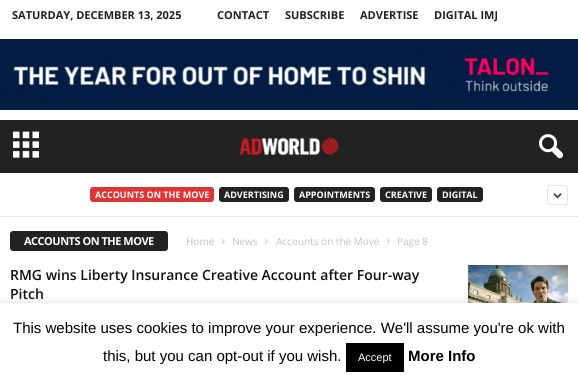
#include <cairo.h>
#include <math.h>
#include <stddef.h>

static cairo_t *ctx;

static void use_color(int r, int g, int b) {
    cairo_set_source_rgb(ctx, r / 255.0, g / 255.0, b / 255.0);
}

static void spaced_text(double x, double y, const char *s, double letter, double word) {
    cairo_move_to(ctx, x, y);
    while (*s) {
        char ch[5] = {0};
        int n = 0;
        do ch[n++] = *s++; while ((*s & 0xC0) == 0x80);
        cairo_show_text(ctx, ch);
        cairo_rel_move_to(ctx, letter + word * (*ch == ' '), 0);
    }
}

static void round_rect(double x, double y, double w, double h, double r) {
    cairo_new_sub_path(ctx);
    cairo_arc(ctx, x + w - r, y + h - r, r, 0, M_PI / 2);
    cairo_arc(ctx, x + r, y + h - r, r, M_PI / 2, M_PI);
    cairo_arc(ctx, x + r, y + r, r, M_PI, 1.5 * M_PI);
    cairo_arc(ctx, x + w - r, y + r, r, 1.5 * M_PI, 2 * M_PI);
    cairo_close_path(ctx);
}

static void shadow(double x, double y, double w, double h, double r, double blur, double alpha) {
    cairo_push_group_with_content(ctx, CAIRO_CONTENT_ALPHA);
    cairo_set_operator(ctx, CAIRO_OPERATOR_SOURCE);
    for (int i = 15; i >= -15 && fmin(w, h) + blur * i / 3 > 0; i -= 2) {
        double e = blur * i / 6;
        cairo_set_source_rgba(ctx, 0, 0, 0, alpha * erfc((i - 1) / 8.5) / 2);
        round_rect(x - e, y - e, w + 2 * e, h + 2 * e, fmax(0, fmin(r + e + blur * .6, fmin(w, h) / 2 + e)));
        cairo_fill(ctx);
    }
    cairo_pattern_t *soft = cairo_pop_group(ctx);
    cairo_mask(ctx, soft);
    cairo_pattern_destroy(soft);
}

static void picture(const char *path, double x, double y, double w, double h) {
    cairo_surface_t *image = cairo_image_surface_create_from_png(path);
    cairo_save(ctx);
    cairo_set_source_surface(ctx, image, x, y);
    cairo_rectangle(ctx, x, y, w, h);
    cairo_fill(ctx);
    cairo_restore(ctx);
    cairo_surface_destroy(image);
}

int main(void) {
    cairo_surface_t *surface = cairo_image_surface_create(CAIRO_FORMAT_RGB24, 578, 384);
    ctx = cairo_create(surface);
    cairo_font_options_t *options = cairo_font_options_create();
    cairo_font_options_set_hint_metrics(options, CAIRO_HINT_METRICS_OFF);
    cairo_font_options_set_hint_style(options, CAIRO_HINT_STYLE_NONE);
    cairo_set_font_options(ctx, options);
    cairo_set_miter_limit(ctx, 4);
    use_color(255, 255, 255);
    cairo_paint(ctx);
    cairo_select_font_face(ctx, "Open Sans", CAIRO_FONT_SLANT_NORMAL, CAIRO_FONT_WEIGHT_BOLD);
    cairo_set_font_size(ctx, 11);
    use_color(34, 34, 34);
    cairo_move_to(ctx, 12, 19);
    cairo_show_text(ctx, "SATURDAY, DECEMBER 13, 2025");
    cairo_move_to(ctx, 217, 19);
    cairo_show_text(ctx, "CONTACT");
    cairo_move_to(ctx, 285, 19);
    cairo_show_text(ctx, "SUBSCRIBE");
    cairo_move_to(ctx, 360, 19);
    cairo_show_text(ctx, "ADVERTISE");
    cairo_move_to(ctx, 434, 19);
    cairo_show_text(ctx, "DIGITAL IMJ");
    picture("img1.png", 0, 39, 578, 71);
    cairo_rectangle(ctx, 0, 120, 578, 53);
    cairo_fill(ctx);
    picture("img2.png", 13, 131, 26, 27);
    picture("img3.png", 239, 137, 100, 18);
    picture("img4.png", 539, 134, 25, 25);
    use_color(230, 230, 230);
    cairo_rectangle(ctx, 0, 216, 578, 1);
    cairo_fill(ctx);
    use_color(222, 52, 52);
    round_rect(90, 187, 124, 15, 3);
    cairo_fill(ctx);
    cairo_set_font_size(ctx, 9);
    use_color(255, 255, 255);
    cairo_move_to(ctx, 95, 198);
    cairo_show_text(ctx, "ACCOUNTS ON THE MOVE");
    use_color(34, 34, 34);
    round_rect(219, 187, 70, 15, 3);
    cairo_fill(ctx);
    use_color(255, 255, 255);
    cairo_move_to(ctx, 224, 198);
    cairo_show_text(ctx, "ADVERTISING");
    use_color(34, 34, 34);
    round_rect(294, 187, 81, 15, 3);
    cairo_fill(ctx);
    use_color(255, 255, 255);
    cairo_move_to(ctx, 299, 198);
    cairo_show_text(ctx, "APPOINTMENTS");
    use_color(34, 34, 34);
    round_rect(380, 187, 52, 15, 3);
    cairo_fill(ctx);
    use_color(255, 255, 255);
    cairo_move_to(ctx, 385, 198);
    cairo_show_text(ctx, "CREATIVE");
    use_color(34, 34, 34);
    round_rect(437, 187, 46, 15, 3);
    cairo_fill(ctx);
    use_color(255, 255, 255);
    cairo_move_to(ctx, 442, 198);
    cairo_show_text(ctx, "DIGITAL");
    round_rect(547.5, 185.5, 20, 19, 2.5);
    use_color(230, 230, 230);
    cairo_set_line_width(ctx, 1);
    cairo_stroke(ctx);
    picture("img5.png", 553, 193, 9, 6);
    use_color(34, 34, 34);
    round_rect(10, 231, 158, 20, 3);
    cairo_fill(ctx);
    cairo_set_font_size(ctx, 11);
    use_color(255, 255, 255);
    spaced_text(24, 245, "ACCOUNTS ON THE MOVE", -0.5, 0);
    cairo_select_font_face(ctx, "Open Sans", CAIRO_FONT_SLANT_NORMAL, CAIRO_FONT_WEIGHT_NORMAL);
    cairo_set_font_size(ctx, 10);
    use_color(195, 195, 195);
    cairo_move_to(ctx, 186, 245);
    cairo_show_text(ctx, "Home");
    picture("img6.png", 222, 239, 3, 5);
    cairo_move_to(ctx, 232, 245);
    cairo_show_text(ctx, "News");
    picture("img6.png", 265, 239, 3, 5);
    cairo_move_to(ctx, 276, 245);
    cairo_show_text(ctx, "Accounts on the Move");
    picture("img6.png", 387, 239, 3, 5);
    cairo_move_to(ctx, 397, 245);
    cairo_show_text(ctx, "Page 8");
    cairo_select_font_face(ctx, "Open Sans SemiBold", CAIRO_FONT_SLANT_NORMAL, CAIRO_FONT_WEIGHT_NORMAL);
    cairo_set_font_size(ctx, 14);
    use_color(17, 17, 17);
    cairo_move_to(ctx, 10, 280);
    cairo_show_text(ctx, "RMG wins Liberty Insurance Creative Account after Four-way");
    cairo_move_to(ctx, 10, 299);
    cairo_show_text(ctx, "Pitch");
    picture("img7.png", 468, 265, 100, 38);
    use_color(172, 171, 171);
    shadow(0, 302, 578, 81, 0, 5, 0.3);
    use_color(255, 255, 255);
    cairo_rectangle(ctx, 0, 303, 578, 81);
    cairo_fill(ctx);
    cairo_select_font_face(ctx, "Liberation Sans", CAIRO_FONT_SLANT_NORMAL, CAIRO_FONT_WEIGHT_NORMAL);
    cairo_set_font_size(ctx, 15);
    use_color(0, 0, 0);
    cairo_move_to(ctx, 13, 333);
    cairo_show_text(ctx, "This website uses cookies to improve your experience. We'll assume you're ok with");
    cairo_move_to(ctx, 103, 361);
    cairo_show_text(ctx, "this, but you can opt-out if you wish.");
    cairo_rectangle(ctx, 346, 343, 58, 29);
    cairo_fill(ctx);
    cairo_set_font_size(ctx, 11);
    use_color(255, 255, 255);
    cairo_move_to(ctx, 358, 361);
    cairo_show_text(ctx, "Accept");
    cairo_select_font_face(ctx, "Liberation Sans", CAIRO_FONT_SLANT_NORMAL, CAIRO_FONT_WEIGHT_BOLD);
    cairo_set_font_size(ctx, 15);
    use_color(0, 0, 0);
    cairo_move_to(ctx, 408, 361);
    cairo_show_text(ctx, "More Info");
    cairo_surface_write_to_png(surface, "result.png");
    cairo_font_options_destroy(options);
    cairo_destroy(ctx);
    cairo_surface_destroy(surface);
    return 0;
}
